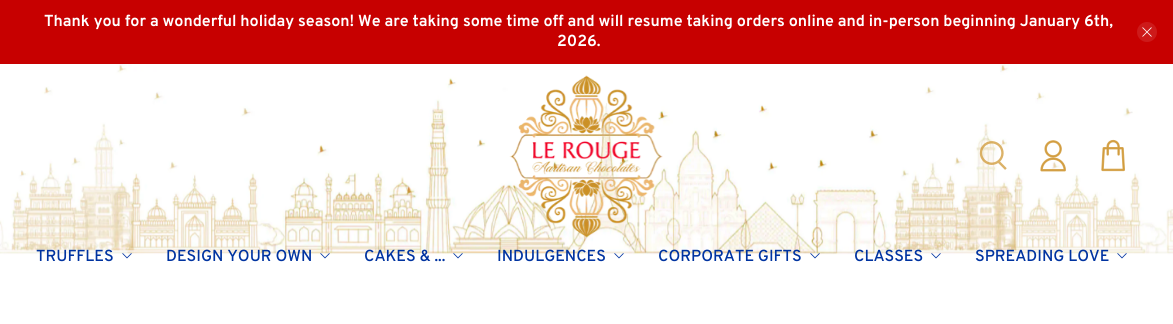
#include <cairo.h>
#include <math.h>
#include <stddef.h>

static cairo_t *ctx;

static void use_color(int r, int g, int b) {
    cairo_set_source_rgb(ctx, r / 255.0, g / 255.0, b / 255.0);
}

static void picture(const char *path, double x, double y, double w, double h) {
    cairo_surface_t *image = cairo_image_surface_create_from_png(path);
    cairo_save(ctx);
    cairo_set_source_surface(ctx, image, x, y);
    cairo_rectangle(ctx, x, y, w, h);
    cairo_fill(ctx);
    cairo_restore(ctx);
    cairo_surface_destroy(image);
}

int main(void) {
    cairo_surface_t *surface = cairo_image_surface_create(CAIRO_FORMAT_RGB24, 1173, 324);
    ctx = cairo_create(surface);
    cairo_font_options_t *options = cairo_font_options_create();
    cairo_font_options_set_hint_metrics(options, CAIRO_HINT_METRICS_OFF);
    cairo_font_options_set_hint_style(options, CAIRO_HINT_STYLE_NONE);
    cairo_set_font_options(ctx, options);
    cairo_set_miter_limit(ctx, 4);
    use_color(255, 255, 255);
    cairo_paint(ctx);
    use_color(199, 0, 0);
    cairo_rectangle(ctx, 0, 0, 1173, 64);
    cairo_fill(ctx);
    cairo_select_font_face(ctx, "Overpass", CAIRO_FONT_SLANT_NORMAL, CAIRO_FONT_WEIGHT_BOLD);
    cairo_set_font_size(ctx, 16);
    use_color(255, 255, 255);
    cairo_move_to(ctx, 44, 26);
    cairo_show_text(ctx, "Thank you for a wonderful holiday season! We are taking some time off and will resume taking orders online and in-person beginning January 6th,");
    cairo_move_to(ctx, 557, 46);
    cairo_show_text(ctx, "2026.");
    use_color(205, 26, 26);
    cairo_new_path(ctx);
    cairo_arc(ctx, 1147, 32, 10, 0, 2 * M_PI);
    cairo_fill(ctx);
    picture("img1.png", 1142, 27, 10, 10);
    picture("img2.png", 0, 64, 1173, 191);
    picture("img3.png", 509, 75, 154, 163);
    picture("img4.png", 979, 141, 28, 29);
    picture("img5.png", 1040, 140, 26, 32);
    picture("img6.png", 1101, 139, 24, 33);
    cairo_select_font_face(ctx, "Overpass SemiBold", CAIRO_FONT_SLANT_NORMAL, CAIRO_FONT_WEIGHT_NORMAL);
    use_color(0, 51, 160);
    cairo_move_to(ctx, 36, 261);
    cairo_show_text(ctx, "TRUFFLES");
    picture("img7.png", 122, 253, 10, 6);
    cairo_move_to(ctx, 166, 261);
    cairo_show_text(ctx, "DESIGN YOUR OWN");
    picture("img8.png", 320, 253, 10, 6);
    cairo_move_to(ctx, 364, 261);
    cairo_show_text(ctx, "CAKES & ...");
    picture("img9.png", 453, 253, 10, 6);
    cairo_move_to(ctx, 497, 261);
    cairo_show_text(ctx, "INDULGENCES");
    picture("img10.png", 614, 253, 10, 6);
    cairo_move_to(ctx, 658, 261);
    cairo_show_text(ctx, "CORPORATE GIFTS");
    picture("img11.png", 810, 253, 10, 6);
    cairo_move_to(ctx, 854, 261);
    cairo_show_text(ctx, "CLASSES");
    picture("img12.png", 931, 253, 10, 6);
    cairo_move_to(ctx, 975, 261);
    cairo_show_text(ctx, "SPREADING LOVE");
    picture("img13.png", 1117, 253, 10, 6);
    cairo_surface_write_to_png(surface, "result.png");
    cairo_font_options_destroy(options);
    cairo_destroy(ctx);
    cairo_surface_destroy(surface);
    return 0;
}
